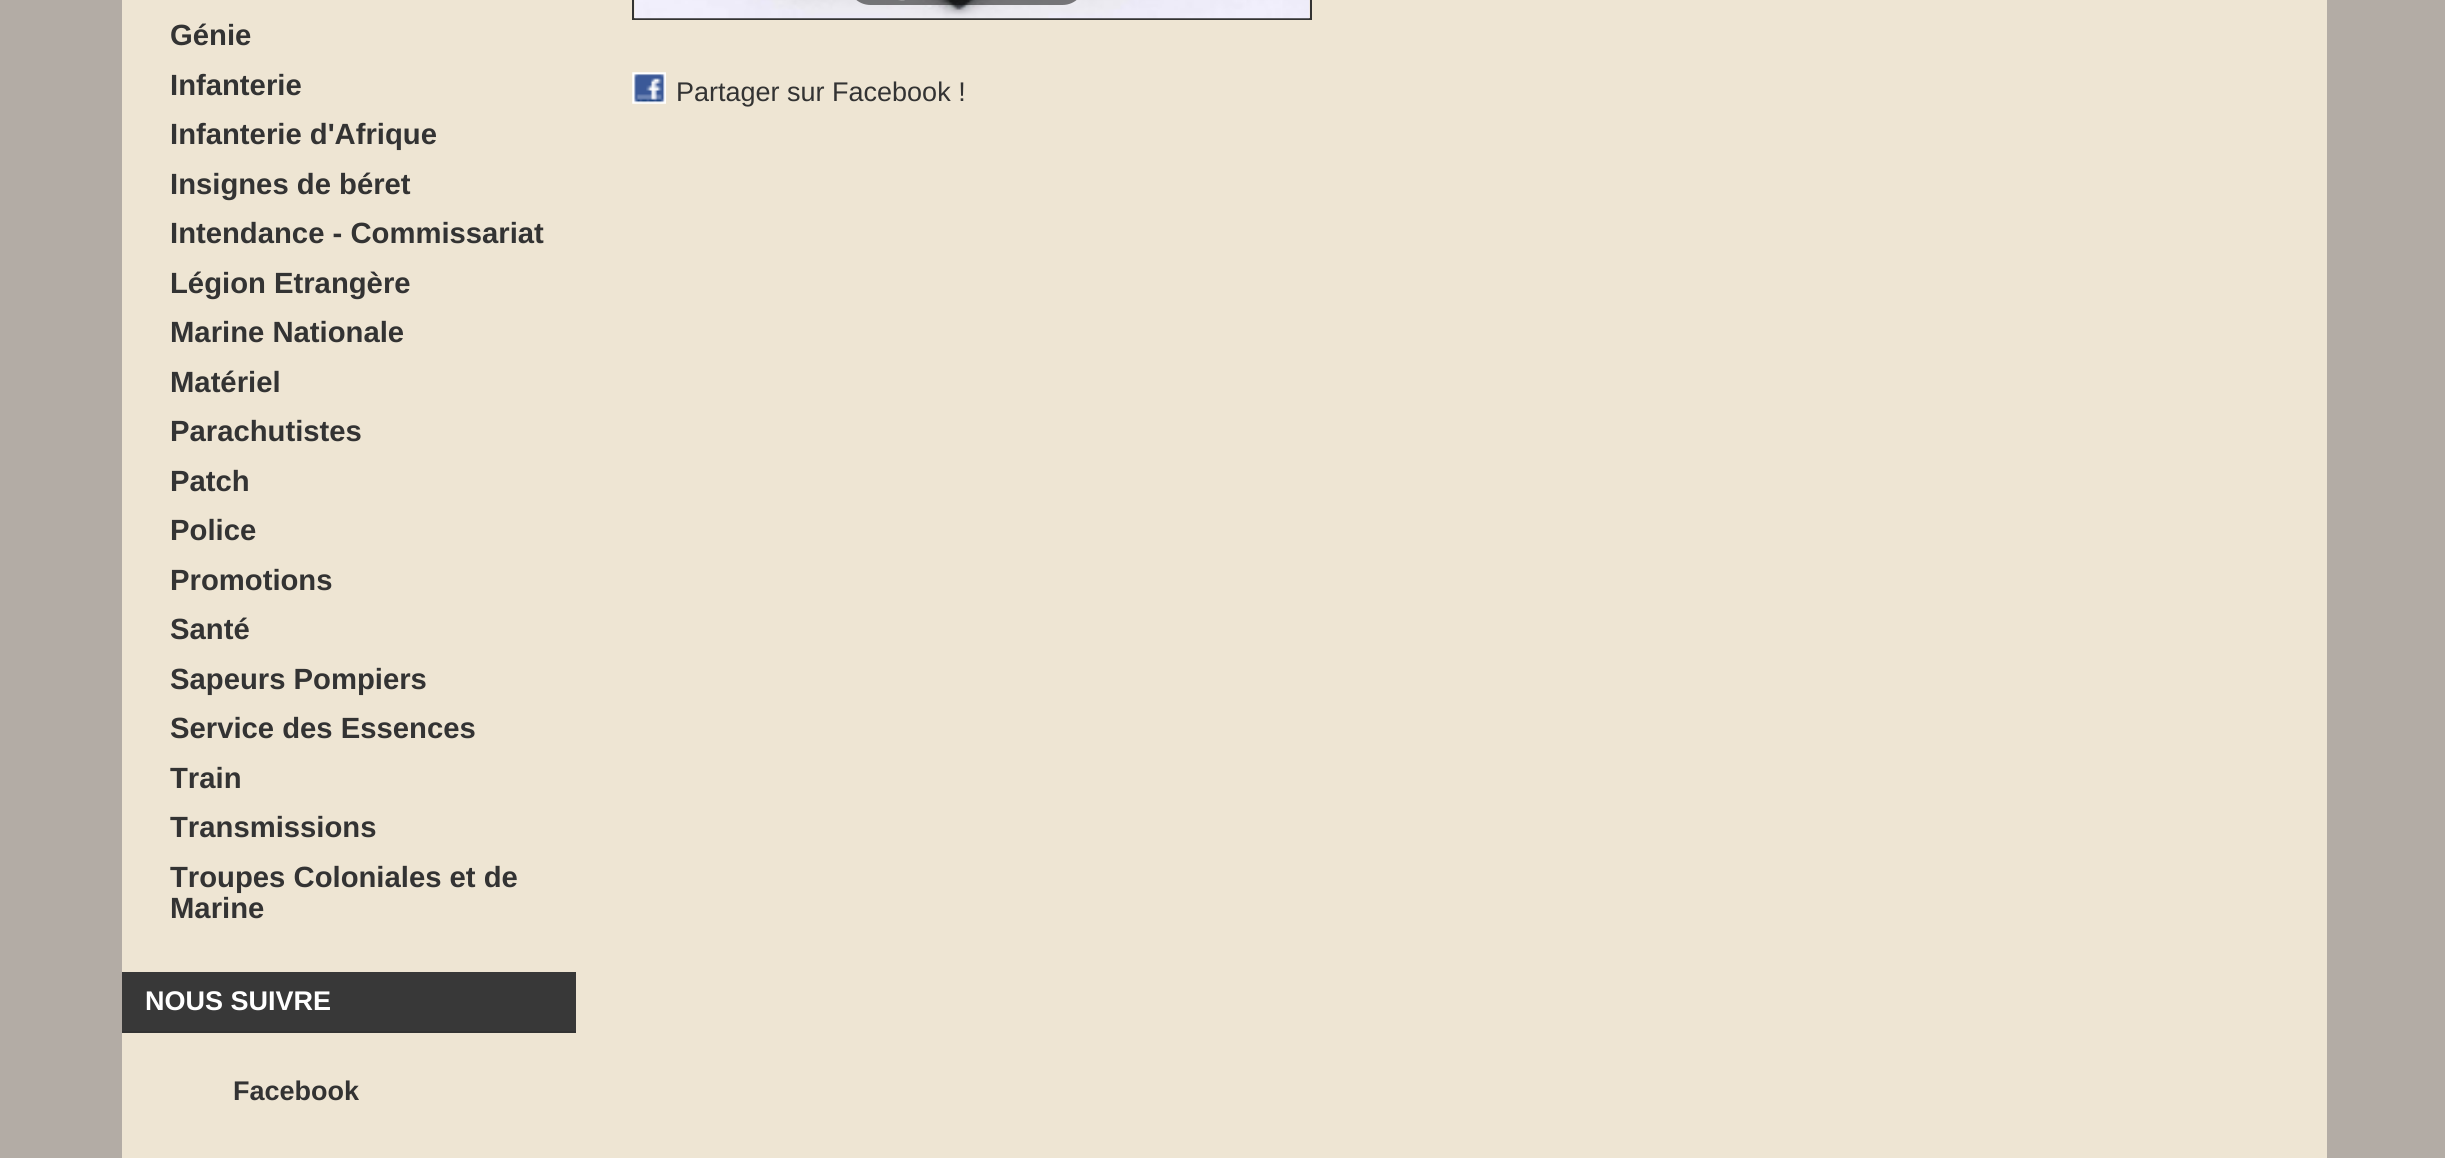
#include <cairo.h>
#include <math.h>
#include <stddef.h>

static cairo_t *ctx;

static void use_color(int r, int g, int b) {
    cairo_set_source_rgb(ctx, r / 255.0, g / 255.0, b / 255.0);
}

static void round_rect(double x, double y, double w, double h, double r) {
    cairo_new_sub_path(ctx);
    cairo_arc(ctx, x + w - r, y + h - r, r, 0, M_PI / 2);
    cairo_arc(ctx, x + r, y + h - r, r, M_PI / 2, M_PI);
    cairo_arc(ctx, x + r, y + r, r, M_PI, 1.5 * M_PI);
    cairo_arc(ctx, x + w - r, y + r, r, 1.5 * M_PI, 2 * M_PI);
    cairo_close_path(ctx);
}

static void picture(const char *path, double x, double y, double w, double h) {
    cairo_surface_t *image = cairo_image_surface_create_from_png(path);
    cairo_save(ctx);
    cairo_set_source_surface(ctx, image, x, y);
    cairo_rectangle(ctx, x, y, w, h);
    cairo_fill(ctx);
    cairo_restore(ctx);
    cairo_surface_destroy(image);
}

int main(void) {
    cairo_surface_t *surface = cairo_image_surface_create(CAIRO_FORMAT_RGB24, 2445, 1158);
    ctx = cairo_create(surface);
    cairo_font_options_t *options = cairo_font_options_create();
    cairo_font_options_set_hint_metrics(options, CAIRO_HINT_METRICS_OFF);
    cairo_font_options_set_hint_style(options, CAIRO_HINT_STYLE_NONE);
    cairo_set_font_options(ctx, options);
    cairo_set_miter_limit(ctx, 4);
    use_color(179, 172, 165);
    cairo_paint(ctx);
    use_color(238, 229, 211);
    cairo_rectangle(ctx, 122, 0, 2205, 1158);
    cairo_fill(ctx);
    cairo_select_font_face(ctx, "Liberation Sans", CAIRO_FONT_SLANT_NORMAL, CAIRO_FONT_WEIGHT_BOLD);
    cairo_set_font_size(ctx, 29.25);
    use_color(51, 51, 51);
    cairo_move_to(ctx, 170, 45);
    cairo_show_text(ctx, "Génie");
    cairo_move_to(ctx, 170, 95);
    cairo_show_text(ctx, "Infanterie");
    cairo_move_to(ctx, 170, 144);
    cairo_show_text(ctx, "Infanterie d'Afrique");
    cairo_move_to(ctx, 170, 194);
    cairo_show_text(ctx, "Insignes de béret");
    cairo_move_to(ctx, 170, 243);
    cairo_show_text(ctx, "Intendance - Commissariat");
    cairo_move_to(ctx, 170, 293);
    cairo_show_text(ctx, "Légion Etrangère");
    cairo_move_to(ctx, 170, 342);
    cairo_show_text(ctx, "Marine Nationale");
    cairo_move_to(ctx, 170, 392);
    cairo_show_text(ctx, "Matériel");
    cairo_move_to(ctx, 170, 441);
    cairo_show_text(ctx, "Parachutistes");
    cairo_move_to(ctx, 170, 491);
    cairo_show_text(ctx, "Patch");
    cairo_move_to(ctx, 170, 540);
    cairo_show_text(ctx, "Police");
    cairo_move_to(ctx, 170, 590);
    cairo_show_text(ctx, "Promotions");
    cairo_move_to(ctx, 170, 639);
    cairo_show_text(ctx, "Santé");
    cairo_move_to(ctx, 170, 689);
    cairo_show_text(ctx, "Sapeurs Pompiers");
    cairo_move_to(ctx, 170, 738);
    cairo_show_text(ctx, "Service des Essences");
    cairo_move_to(ctx, 170, 788);
    cairo_show_text(ctx, "Train");
    cairo_move_to(ctx, 170, 837);
    cairo_show_text(ctx, "Transmissions");
    cairo_move_to(ctx, 170, 887);
    cairo_show_text(ctx, "Troupes Coloniales et de");
    cairo_move_to(ctx, 170, 918);
    cairo_show_text(ctx, "Marine");
    use_color(56, 56, 56);
    cairo_rectangle(ctx, 122, 972, 454, 59);
    cairo_fill(ctx);
    use_color(51, 51, 51);
    cairo_rectangle(ctx, 122, 1031, 454, 2);
    cairo_fill(ctx);
    cairo_set_font_size(ctx, 27);
    use_color(255, 255, 255);
    cairo_move_to(ctx, 145, 1010);
    cairo_show_text(ctx, "NOUS SUIVRE");
    use_color(51, 51, 51);
    cairo_move_to(ctx, 233, 1100);
    cairo_show_text(ctx, "Facebook");
    cairo_rectangle(ctx, 633, -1, 678, 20);
    cairo_stroke(ctx);
    picture("img2.png", 634, 0, 676, 19);
    cairo_set_source_rgba(ctx, 0, 0, 0, 0.5);
    round_rect(848, -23, 237, 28, 22.5);
    cairo_fill(ctx);
    picture("img1.png", 898, 0, 7, 1);
    picture("img3.png", 632, 72, 34, 32);
    cairo_select_font_face(ctx, "Liberation Sans", CAIRO_FONT_SLANT_NORMAL, CAIRO_FONT_WEIGHT_NORMAL);
    use_color(51, 51, 51);
    cairo_move_to(ctx, 676, 101);
    cairo_show_text(ctx, "Partager sur Facebook !");
    cairo_surface_write_to_png(surface, "result.png");
    cairo_font_options_destroy(options);
    cairo_destroy(ctx);
    cairo_surface_destroy(surface);
    return 0;
}
